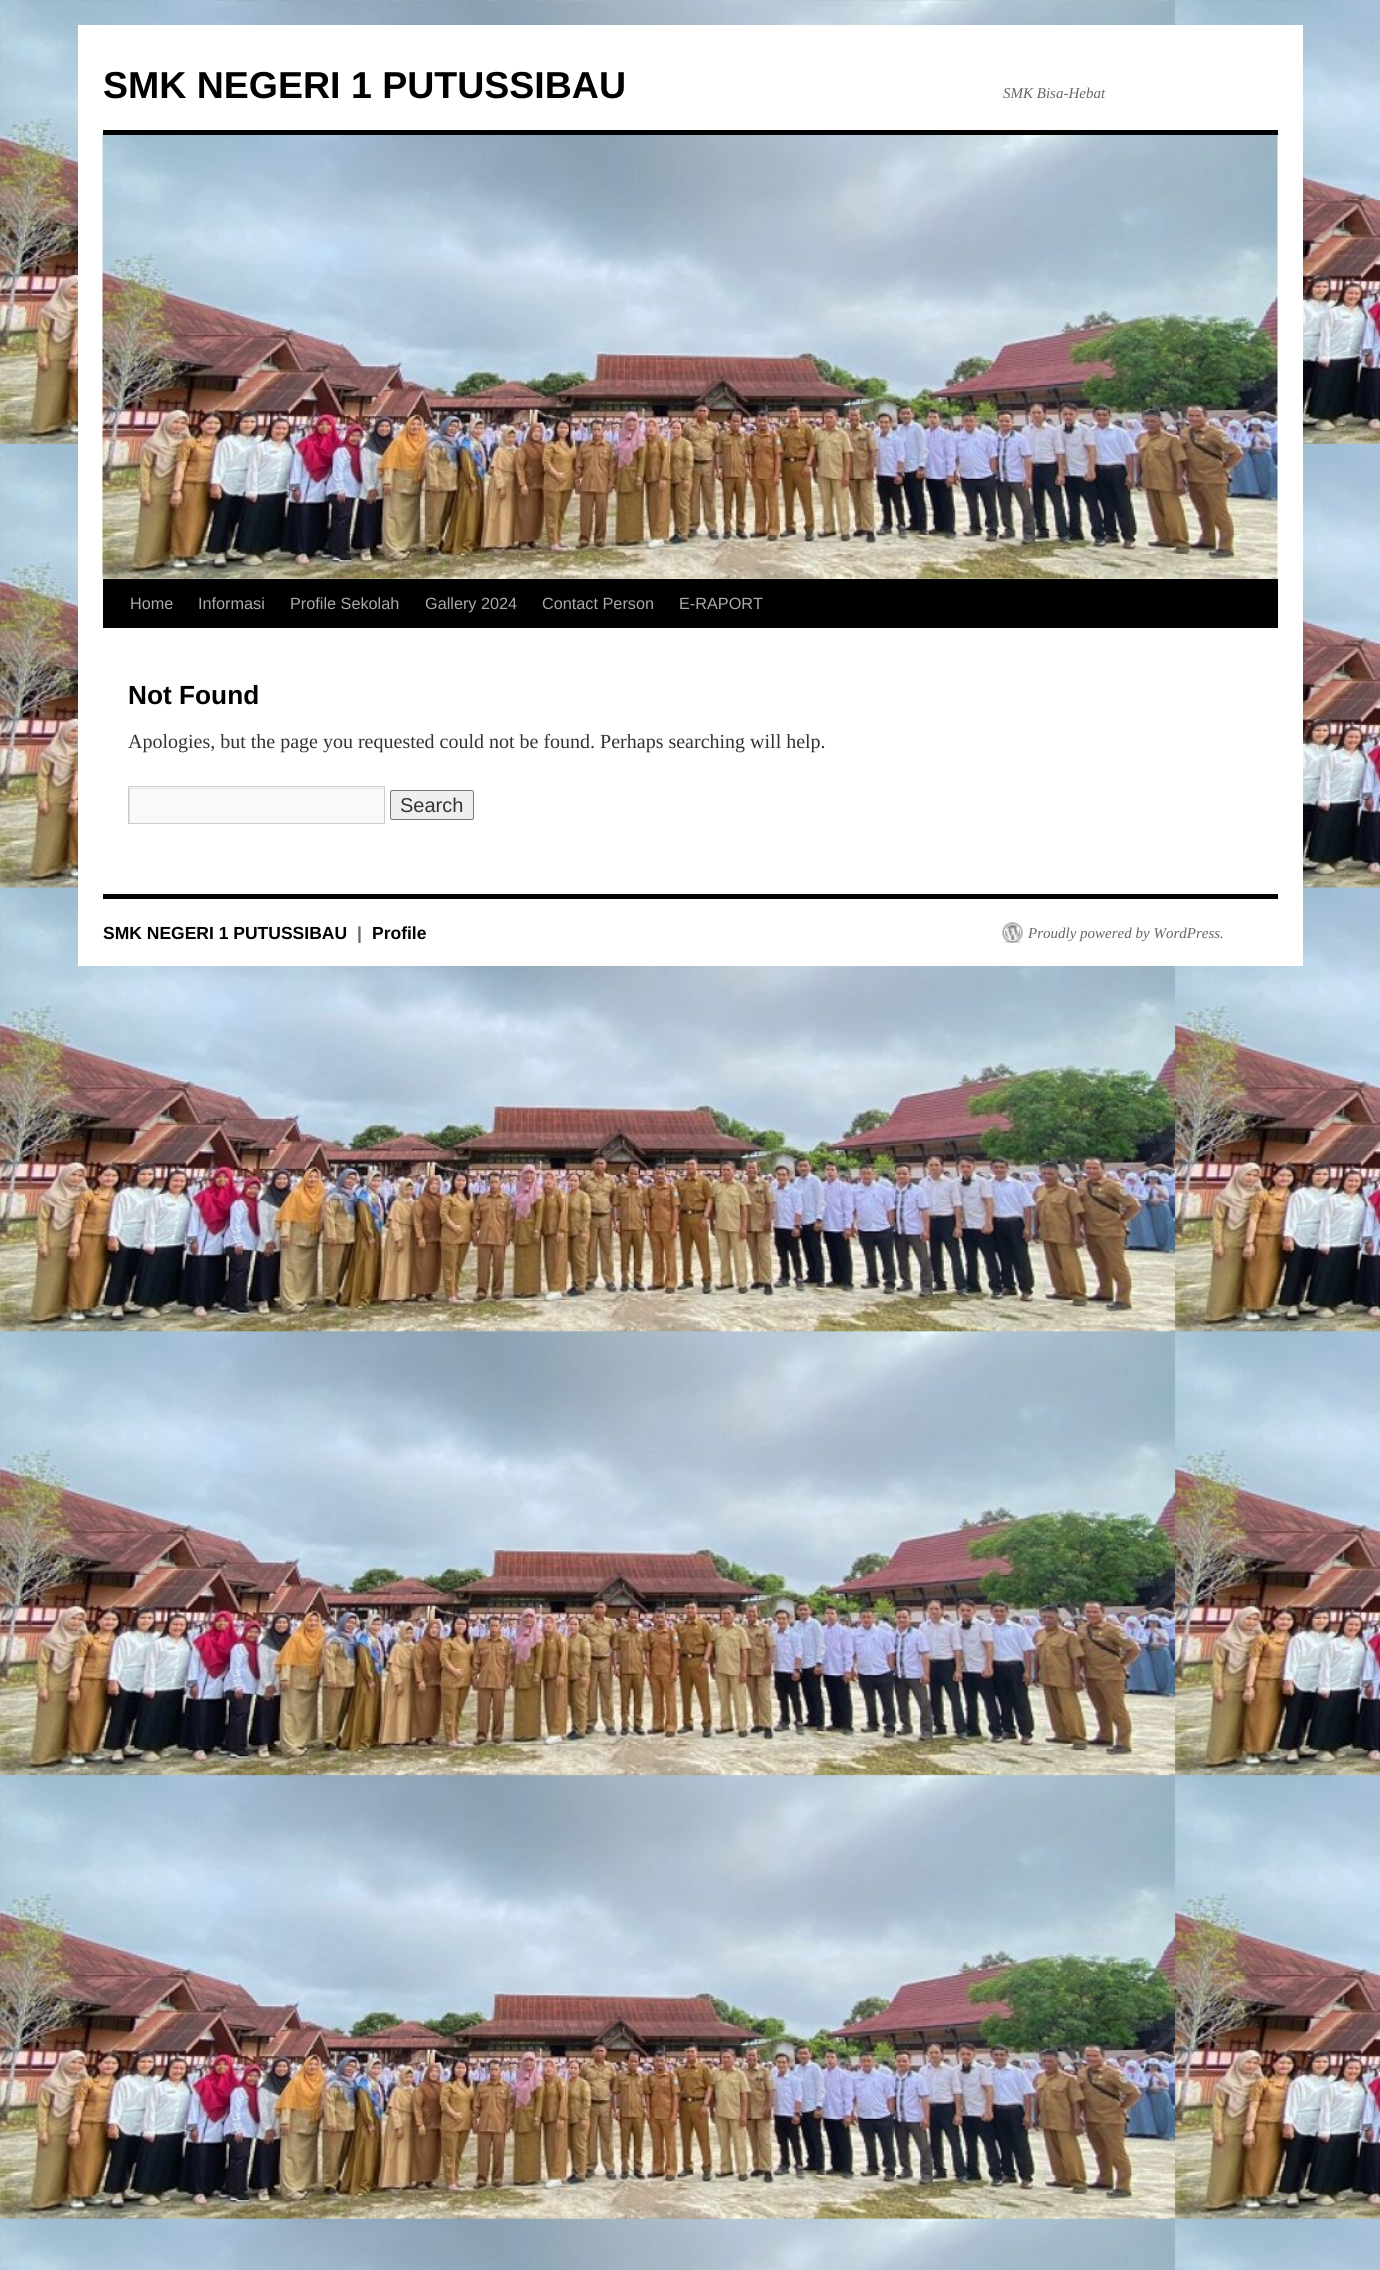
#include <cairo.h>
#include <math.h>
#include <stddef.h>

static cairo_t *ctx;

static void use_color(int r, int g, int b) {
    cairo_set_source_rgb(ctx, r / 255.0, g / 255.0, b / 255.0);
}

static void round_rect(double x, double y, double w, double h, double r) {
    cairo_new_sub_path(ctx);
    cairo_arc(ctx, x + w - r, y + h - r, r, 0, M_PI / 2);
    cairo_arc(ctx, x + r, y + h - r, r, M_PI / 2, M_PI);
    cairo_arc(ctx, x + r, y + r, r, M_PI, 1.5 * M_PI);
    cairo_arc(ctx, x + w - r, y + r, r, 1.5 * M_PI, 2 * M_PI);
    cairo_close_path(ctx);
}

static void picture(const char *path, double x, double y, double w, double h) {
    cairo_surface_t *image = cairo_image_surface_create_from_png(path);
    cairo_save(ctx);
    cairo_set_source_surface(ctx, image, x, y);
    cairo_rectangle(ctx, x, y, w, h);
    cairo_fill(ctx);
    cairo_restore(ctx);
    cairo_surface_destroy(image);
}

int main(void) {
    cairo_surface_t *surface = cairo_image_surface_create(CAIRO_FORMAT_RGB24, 1380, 2270);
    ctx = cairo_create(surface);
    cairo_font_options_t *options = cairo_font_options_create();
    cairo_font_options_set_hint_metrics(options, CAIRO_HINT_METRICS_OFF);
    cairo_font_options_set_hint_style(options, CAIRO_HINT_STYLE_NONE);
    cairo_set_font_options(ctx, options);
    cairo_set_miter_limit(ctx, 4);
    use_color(255, 255, 255);
    cairo_paint(ctx);
    picture("img1.png", 0, 0, 1380, 2270);
    use_color(255, 255, 255);
    cairo_rectangle(ctx, 78, 25, 1225, 941);
    cairo_fill(ctx);
    cairo_select_font_face(ctx, "Liberation Sans", CAIRO_FONT_SLANT_NORMAL, CAIRO_FONT_WEIGHT_BOLD);
    cairo_set_font_size(ctx, 37.5);
    use_color(0, 0, 0);
    cairo_move_to(ctx, 103, 98);
    cairo_show_text(ctx, "SMK NEGERI 1 PUTUSSIBAU");
    cairo_select_font_face(ctx, "Liberation Serif", CAIRO_FONT_SLANT_ITALIC, CAIRO_FONT_WEIGHT_NORMAL);
    cairo_set_font_size(ctx, 15);
    use_color(102, 102, 102);
    cairo_move_to(ctx, 1003, 98);
    cairo_show_text(ctx, "SMK Bisa-Hebat");
    use_color(0, 0, 0);
    cairo_rectangle(ctx, 103, 130, 1175, 5);
    cairo_fill(ctx);
    cairo_rectangle(ctx, 103, 579, 1175, 49);
    cairo_fill(ctx);
    picture("img2.png", 102, 135, 1176, 444);
    cairo_select_font_face(ctx, "Liberation Sans", CAIRO_FONT_SLANT_NORMAL, CAIRO_FONT_WEIGHT_NORMAL);
    cairo_set_font_size(ctx, 16.25);
    use_color(170, 170, 170);
    cairo_move_to(ctx, 130, 609);
    cairo_show_text(ctx, "Home");
    cairo_move_to(ctx, 198, 609);
    cairo_show_text(ctx, "Informasi");
    cairo_move_to(ctx, 290, 609);
    cairo_show_text(ctx, "Profile Sekolah");
    cairo_move_to(ctx, 425, 609);
    cairo_show_text(ctx, "Gallery 2024");
    cairo_move_to(ctx, 542, 609);
    cairo_show_text(ctx, "Contact Person");
    cairo_move_to(ctx, 679, 609);
    cairo_show_text(ctx, "E-RAPORT");
    cairo_select_font_face(ctx, "Liberation Sans", CAIRO_FONT_SLANT_NORMAL, CAIRO_FONT_WEIGHT_BOLD);
    cairo_set_font_size(ctx, 26.25);
    use_color(0, 0, 0);
    cairo_move_to(ctx, 128, 704);
    cairo_show_text(ctx, "Not Found");
    cairo_select_font_face(ctx, "Liberation Serif", CAIRO_FONT_SLANT_NORMAL, CAIRO_FONT_WEIGHT_NORMAL);
    cairo_set_font_size(ctx, 20);
    use_color(51, 51, 51);
    cairo_move_to(ctx, 128, 748);
    cairo_show_text(ctx, "Apologies, but the page you requested could not be found. Perhaps searching will help.");
    use_color(249, 249, 249);
    cairo_rectangle(ctx, 129, 787, 255, 36);
    cairo_fill(ctx);
    cairo_save(ctx);
    cairo_rectangle(ctx, 129, 788, 255, 35);
    cairo_clip(ctx);
    use_color(224, 224, 224);
    cairo_set_fill_rule(ctx, CAIRO_FILL_RULE_EVEN_ODD);
    cairo_new_path(ctx);
    cairo_move_to(ctx, 5, 664);
    cairo_line_to(ctx, 508, 664);
    cairo_line_to(ctx, 508, 946);
    cairo_line_to(ctx, 5, 946);
    cairo_close_path(ctx);
    cairo_move_to(ctx, 130, 789);
    cairo_line_to(ctx, 385, 789);
    cairo_line_to(ctx, 385, 824);
    cairo_line_to(ctx, 130, 824);
    cairo_close_path(ctx);
    cairo_fill(ctx);
    cairo_restore(ctx);
    cairo_rectangle(ctx, 128.5, 786.5, 256, 37);
    use_color(204, 204, 204);
    cairo_set_line_width(ctx, 1);
    cairo_stroke(ctx);
    use_color(239, 239, 239);
    round_rect(390.5, 790.5, 83, 29, 2);
    cairo_fill_preserve(ctx);
    use_color(118, 118, 118);
    cairo_stroke(ctx);
    cairo_select_font_face(ctx, "Liberation Sans", CAIRO_FONT_SLANT_NORMAL, CAIRO_FONT_WEIGHT_NORMAL);
    use_color(51, 51, 51);
    cairo_move_to(ctx, 400, 812);
    cairo_show_text(ctx, "Search");
    use_color(0, 0, 0);
    cairo_rectangle(ctx, 103, 894, 1175, 5);
    cairo_fill(ctx);
    cairo_select_font_face(ctx, "Liberation Sans", CAIRO_FONT_SLANT_NORMAL, CAIRO_FONT_WEIGHT_BOLD);
    cairo_set_font_size(ctx, 17.5);
    cairo_move_to(ctx, 103, 939);
    cairo_show_text(ctx, "SMK NEGERI 1 PUTUSSIBAU");
    use_color(102, 102, 102);
    cairo_move_to(ctx, 357, 939);
    cairo_show_text(ctx, "|");
    use_color(0, 0, 0);
    cairo_move_to(ctx, 372, 939);
    cairo_show_text(ctx, "Profile");
    picture("img3.png", 1002, 922, 21, 21);
    cairo_select_font_face(ctx, "Liberation Serif", CAIRO_FONT_SLANT_ITALIC, CAIRO_FONT_WEIGHT_NORMAL);
    cairo_set_font_size(ctx, 15);
    use_color(102, 102, 102);
    cairo_move_to(ctx, 1028, 938);
    cairo_show_text(ctx, "Proudly powered by WordPress.");
    cairo_surface_write_to_png(surface, "result.png");
    cairo_font_options_destroy(options);
    cairo_destroy(ctx);
    cairo_surface_destroy(surface);
    return 0;
}
